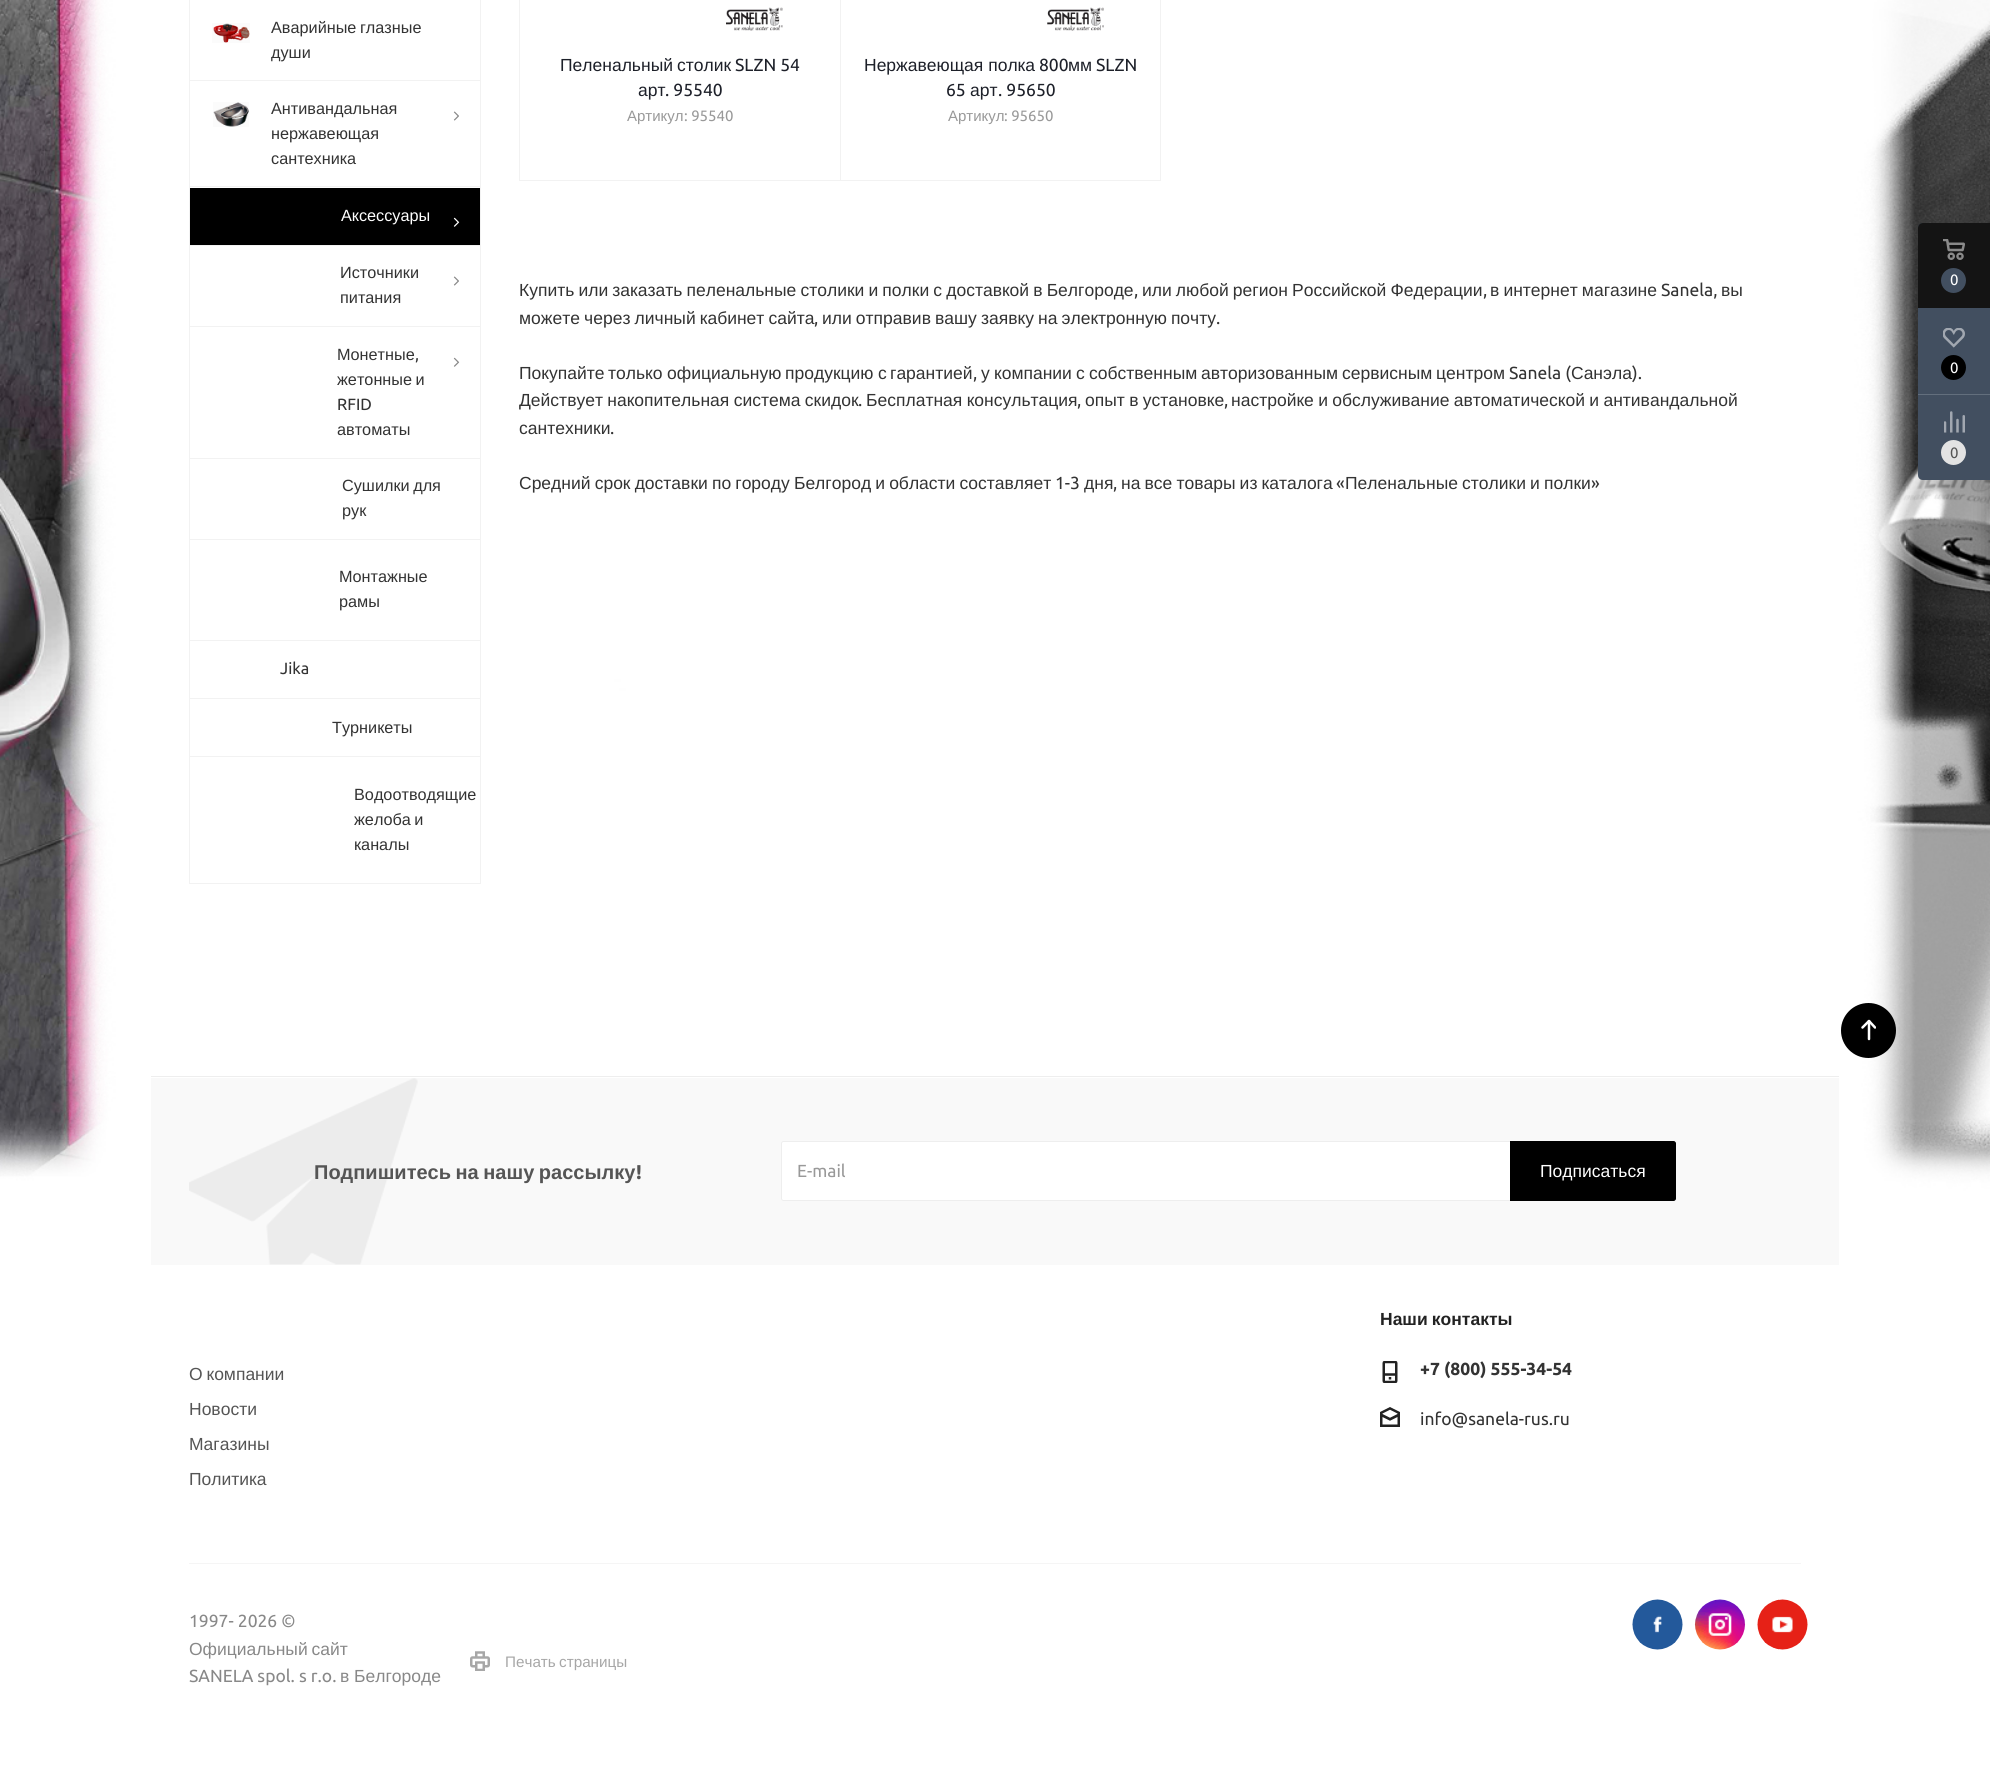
#include <cairo.h>
#include <math.h>
#include <stddef.h>

static cairo_t *ctx;

static void use_color(int r, int g, int b) {
    cairo_set_source_rgb(ctx, r / 255.0, g / 255.0, b / 255.0);
}

static void spaced_text(double x, double y, const char *s, double letter, double word) {
    cairo_move_to(ctx, x, y);
    while (*s) {
        char ch[5] = {0};
        int n = 0;
        do ch[n++] = *s++; while ((*s & 0xC0) == 0x80);
        cairo_show_text(ctx, ch);
        cairo_rel_move_to(ctx, letter + word * (*ch == ' '), 0);
    }
}

static void round_rect(double x, double y, double w, double h, double r) {
    cairo_new_sub_path(ctx);
    cairo_arc(ctx, x + w - r, y + h - r, r, 0, M_PI / 2);
    cairo_arc(ctx, x + r, y + h - r, r, M_PI / 2, M_PI);
    cairo_arc(ctx, x + r, y + r, r, M_PI, 1.5 * M_PI);
    cairo_arc(ctx, x + w - r, y + r, r, 1.5 * M_PI, 2 * M_PI);
    cairo_close_path(ctx);
}

static void shadow(double x, double y, double w, double h, double r, double blur, double alpha) {
    cairo_push_group_with_content(ctx, CAIRO_CONTENT_ALPHA);
    cairo_set_operator(ctx, CAIRO_OPERATOR_SOURCE);
    for (int i = 15; i >= -15 && fmin(w, h) + blur * i / 3 > 0; i -= 2) {
        double e = blur * i / 6;
        cairo_set_source_rgba(ctx, 0, 0, 0, alpha * erfc((i - 1) / 8.5) / 2);
        round_rect(x - e, y - e, w + 2 * e, h + 2 * e, fmax(0, fmin(r + e + blur * .6, fmin(w, h) / 2 + e)));
        cairo_fill(ctx);
    }
    cairo_pattern_t *soft = cairo_pop_group(ctx);
    cairo_mask(ctx, soft);
    cairo_pattern_destroy(soft);
}

static void picture(const char *path, double x, double y, double w, double h) {
    cairo_surface_t *image = cairo_image_surface_create_from_png(path);
    cairo_save(ctx);
    cairo_set_source_surface(ctx, image, x, y);
    cairo_rectangle(ctx, x, y, w, h);
    cairo_fill(ctx);
    cairo_restore(ctx);
    cairo_surface_destroy(image);
}

int main(void) {
    cairo_surface_t *surface = cairo_image_surface_create(CAIRO_FORMAT_RGB24, 1990, 1775);
    ctx = cairo_create(surface);
    cairo_font_options_t *options = cairo_font_options_create();
    cairo_font_options_set_hint_metrics(options, CAIRO_HINT_METRICS_OFF);
    cairo_font_options_set_hint_style(options, CAIRO_HINT_STYLE_NONE);
    cairo_set_font_options(ctx, options);
    cairo_set_miter_limit(ctx, 4);
    use_color(255, 255, 255);
    cairo_paint(ctx);
    picture("img1.png", 0, 0, 1990, 1775);
    use_color(242, 242, 242);
    cairo_rectangle(ctx, 480, 0, 1, 80);
    cairo_fill(ctx);
    cairo_rectangle(ctx, 189, 0, 1, 80);
    cairo_fill(ctx);
    picture("img2.png", 212, 23, 38, 20);
    cairo_select_font_face(ctx, "Liberation Sans", CAIRO_FONT_SLANT_NORMAL, CAIRO_FONT_WEIGHT_NORMAL);
    cairo_set_font_size(ctx, 16.25);
    use_color(51, 51, 51);
    spaced_text(271, 33, "Аварийные глазные", 0, -1);
    cairo_move_to(ctx, 271, 58);
    cairo_show_text(ctx, "души");
    use_color(242, 242, 242);
    cairo_rectangle(ctx, 189, 80, 292, 1);
    cairo_fill(ctx);
    cairo_rectangle(ctx, 480, 80, 1, 106);
    cairo_fill(ctx);
    cairo_rectangle(ctx, 189, 80, 1, 106);
    cairo_fill(ctx);
    picture("img3.png", 213, 102, 36, 25);
    use_color(51, 51, 51);
    cairo_move_to(ctx, 271, 114);
    cairo_show_text(ctx, "Антивандальная");
    cairo_move_to(ctx, 271, 139);
    cairo_show_text(ctx, "нержавеющая");
    cairo_move_to(ctx, 271, 164);
    cairo_show_text(ctx, "сантехника");
    picture("img4.png", 453, 111, 6, 10);
    use_color(0, 0, 0);
    cairo_rectangle(ctx, 190, 188, 290, 57);
    cairo_fill(ctx);
    use_color(242, 242, 242);
    cairo_rectangle(ctx, 189, 186, 292, 1);
    cairo_fill(ctx);
    cairo_rectangle(ctx, 480, 186, 1, 59);
    cairo_fill(ctx);
    cairo_rectangle(ctx, 189, 186, 1, 59);
    cairo_fill(ctx);
    use_color(255, 255, 255);
    cairo_move_to(ctx, 341, 221);
    cairo_show_text(ctx, "Аксессуары");
    picture("img5.png", 453, 217, 7, 10);
    use_color(242, 242, 242);
    cairo_rectangle(ctx, 189, 245, 292, 1);
    cairo_fill(ctx);
    cairo_rectangle(ctx, 480, 245, 1, 81);
    cairo_fill(ctx);
    cairo_rectangle(ctx, 189, 245, 1, 81);
    cairo_fill(ctx);
    use_color(51, 51, 51);
    cairo_move_to(ctx, 340, 278);
    cairo_show_text(ctx, "Источники");
    cairo_move_to(ctx, 340, 303);
    cairo_show_text(ctx, "питания");
    picture("img4.png", 453, 276, 6, 10);
    use_color(242, 242, 242);
    cairo_rectangle(ctx, 189, 326, 292, 1);
    cairo_fill(ctx);
    cairo_rectangle(ctx, 480, 326, 1, 132);
    cairo_fill(ctx);
    cairo_rectangle(ctx, 189, 326, 1, 132);
    cairo_fill(ctx);
    use_color(51, 51, 51);
    cairo_move_to(ctx, 337, 360);
    cairo_show_text(ctx, "Монетные");
    cairo_select_font_face(ctx, "Ubuntu", CAIRO_FONT_SLANT_NORMAL, CAIRO_FONT_WEIGHT_NORMAL);
    cairo_move_to(ctx, 415, 360);
    cairo_show_text(ctx, ",");
    cairo_select_font_face(ctx, "Liberation Sans", CAIRO_FONT_SLANT_NORMAL, CAIRO_FONT_WEIGHT_NORMAL);
    spaced_text(337, 385, "жетонные и", 0, -1);
    cairo_select_font_face(ctx, "Ubuntu", CAIRO_FONT_SLANT_NORMAL, CAIRO_FONT_WEIGHT_NORMAL);
    cairo_move_to(ctx, 337, 410);
    cairo_show_text(ctx, "RFID");
    cairo_select_font_face(ctx, "Liberation Sans", CAIRO_FONT_SLANT_NORMAL, CAIRO_FONT_WEIGHT_NORMAL);
    cairo_move_to(ctx, 337, 435);
    cairo_show_text(ctx, "автоматы");
    picture("img6.png", 453, 357, 7, 10);
    use_color(242, 242, 242);
    cairo_rectangle(ctx, 189, 458, 292, 1);
    cairo_fill(ctx);
    cairo_rectangle(ctx, 480, 458, 1, 81);
    cairo_fill(ctx);
    cairo_rectangle(ctx, 189, 458, 1, 81);
    cairo_fill(ctx);
    use_color(51, 51, 51);
    spaced_text(342, 491, "Сушилки для", 0, -1);
    cairo_move_to(ctx, 342, 516);
    cairo_show_text(ctx, "рук");
    use_color(242, 242, 242);
    cairo_rectangle(ctx, 189, 539, 292, 1);
    cairo_fill(ctx);
    cairo_rectangle(ctx, 480, 539, 1, 101);
    cairo_fill(ctx);
    cairo_rectangle(ctx, 189, 539, 1, 101);
    cairo_fill(ctx);
    use_color(51, 51, 51);
    cairo_move_to(ctx, 339, 582);
    cairo_show_text(ctx, "Монтажные");
    cairo_move_to(ctx, 339, 607);
    cairo_show_text(ctx, "рамы");
    use_color(242, 242, 242);
    cairo_rectangle(ctx, 189, 640, 292, 1);
    cairo_fill(ctx);
    cairo_rectangle(ctx, 480, 640, 1, 58);
    cairo_fill(ctx);
    cairo_rectangle(ctx, 189, 640, 1, 58);
    cairo_fill(ctx);
    cairo_select_font_face(ctx, "Ubuntu", CAIRO_FONT_SLANT_NORMAL, CAIRO_FONT_WEIGHT_NORMAL);
    use_color(51, 51, 51);
    cairo_move_to(ctx, 280, 674);
    cairo_show_text(ctx, "Jika");
    use_color(242, 242, 242);
    cairo_rectangle(ctx, 189, 698, 292, 1);
    cairo_fill(ctx);
    cairo_rectangle(ctx, 480, 698, 1, 58);
    cairo_fill(ctx);
    cairo_rectangle(ctx, 189, 698, 1, 58);
    cairo_fill(ctx);
    cairo_select_font_face(ctx, "Liberation Sans", CAIRO_FONT_SLANT_NORMAL, CAIRO_FONT_WEIGHT_NORMAL);
    use_color(51, 51, 51);
    cairo_move_to(ctx, 332, 733);
    cairo_show_text(ctx, "Турникеты");
    cairo_rectangle(ctx, 189.5, 756.5, 291, 127);
    use_color(242, 242, 242);
    cairo_set_line_width(ctx, 1);
    cairo_stroke(ctx);
    use_color(51, 51, 51);
    cairo_move_to(ctx, 354, 800);
    cairo_show_text(ctx, "Водоотводящие");
    spaced_text(354, 825, "желоба и", 0, -1);
    cairo_move_to(ctx, 354, 850);
    cairo_show_text(ctx, "каналы");
    cairo_rectangle(ctx, 519.5, -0.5, 321, 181);
    use_color(242, 242, 242);
    cairo_stroke(ctx);
    picture("img7.png", 726, 7, 57, 24);
    cairo_set_font_size(ctx, 17.5);
    use_color(29, 32, 41);
    cairo_move_to(ctx, 560, 71);
    cairo_show_text(ctx, "Пеленальный");
    cairo_move_to(ctx, 677, 71);
    cairo_show_text(ctx, "столик");
    cairo_select_font_face(ctx, "Ubuntu", CAIRO_FONT_SLANT_NORMAL, CAIRO_FONT_WEIGHT_NORMAL);
    cairo_move_to(ctx, 735, 71);
    cairo_show_text(ctx, "SLZN 54");
    cairo_select_font_face(ctx, "Liberation Sans", CAIRO_FONT_SLANT_NORMAL, CAIRO_FONT_WEIGHT_NORMAL);
    cairo_move_to(ctx, 638, 96);
    cairo_show_text(ctx, "арт");
    cairo_select_font_face(ctx, "Ubuntu", CAIRO_FONT_SLANT_NORMAL, CAIRO_FONT_WEIGHT_NORMAL);
    cairo_move_to(ctx, 665, 96);
    cairo_show_text(ctx, ". 95540");
    cairo_select_font_face(ctx, "Liberation Sans", CAIRO_FONT_SLANT_NORMAL, CAIRO_FONT_WEIGHT_NORMAL);
    cairo_set_font_size(ctx, 15);
    use_color(153, 153, 153);
    cairo_move_to(ctx, 627, 121);
    cairo_show_text(ctx, "Артикул");
    cairo_select_font_face(ctx, "Ubuntu", CAIRO_FONT_SLANT_NORMAL, CAIRO_FONT_WEIGHT_NORMAL);
    cairo_move_to(ctx, 684, 121);
    cairo_show_text(ctx, ": 95540");
    cairo_rectangle(ctx, 840.5, -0.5, 320, 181);
    use_color(242, 242, 242);
    cairo_stroke(ctx);
    picture("img8.png", 1047, 7, 57, 24);
    cairo_select_font_face(ctx, "Liberation Sans", CAIRO_FONT_SLANT_NORMAL, CAIRO_FONT_WEIGHT_NORMAL);
    cairo_set_font_size(ctx, 17.5);
    use_color(29, 32, 41);
    cairo_move_to(ctx, 864, 71);
    cairo_show_text(ctx, "Нержавеющая полка");
    cairo_select_font_face(ctx, "Ubuntu", CAIRO_FONT_SLANT_NORMAL, CAIRO_FONT_WEIGHT_NORMAL);
    cairo_move_to(ctx, 1039, 71);
    cairo_show_text(ctx, "800");
    cairo_select_font_face(ctx, "Liberation Sans", CAIRO_FONT_SLANT_NORMAL, CAIRO_FONT_WEIGHT_NORMAL);
    cairo_move_to(ctx, 1068, 71);
    cairo_show_text(ctx, "мм");
    cairo_select_font_face(ctx, "Ubuntu", CAIRO_FONT_SLANT_NORMAL, CAIRO_FONT_WEIGHT_NORMAL);
    cairo_move_to(ctx, 1096, 71);
    cairo_show_text(ctx, "SLZN");
    cairo_move_to(ctx, 946, 96);
    cairo_show_text(ctx, "65");
    cairo_select_font_face(ctx, "Liberation Sans", CAIRO_FONT_SLANT_NORMAL, CAIRO_FONT_WEIGHT_NORMAL);
    cairo_move_to(ctx, 970, 96);
    cairo_show_text(ctx, "арт");
    cairo_select_font_face(ctx, "Ubuntu", CAIRO_FONT_SLANT_NORMAL, CAIRO_FONT_WEIGHT_NORMAL);
    cairo_move_to(ctx, 998, 96);
    cairo_show_text(ctx, ". 95650");
    cairo_select_font_face(ctx, "Liberation Sans", CAIRO_FONT_SLANT_NORMAL, CAIRO_FONT_WEIGHT_NORMAL);
    cairo_set_font_size(ctx, 15);
    use_color(153, 153, 153);
    cairo_move_to(ctx, 948, 121);
    cairo_show_text(ctx, "Артикул");
    cairo_select_font_face(ctx, "Ubuntu", CAIRO_FONT_SLANT_NORMAL, CAIRO_FONT_WEIGHT_NORMAL);
    cairo_move_to(ctx, 1004, 121);
    cairo_show_text(ctx, ": 95650");
    cairo_select_font_face(ctx, "Liberation Sans", CAIRO_FONT_SLANT_NORMAL, CAIRO_FONT_WEIGHT_NORMAL);
    cairo_set_font_size(ctx, 17.5);
    use_color(51, 51, 51);
    spaced_text(519, 296, "Купить или заказать пеленальные столики и полки с доставкой в Белгороде", 0, -0.75);
    spaced_text(1142, 296, "или любой регион Российской Федерации", 0, -0.75);
    spaced_text(1490, 296, "в интернет магазине", 0, -0.75);
    cairo_select_font_face(ctx, "Ubuntu", CAIRO_FONT_SLANT_NORMAL, CAIRO_FONT_WEIGHT_NORMAL);
    cairo_move_to(ctx, 1661, 296);
    cairo_show_text(ctx, "Sanela,");
    cairo_select_font_face(ctx, "Liberation Sans", CAIRO_FONT_SLANT_NORMAL, CAIRO_FONT_WEIGHT_NORMAL);
    cairo_move_to(ctx, 1721, 296);
    cairo_show_text(ctx, "вы");
    cairo_select_font_face(ctx, "Ubuntu", CAIRO_FONT_SLANT_NORMAL, CAIRO_FONT_WEIGHT_NORMAL);
    cairo_move_to(ctx, 1134, 296);
    cairo_show_text(ctx, ",");
    cairo_move_to(ctx, 1483, 296);
    cairo_show_text(ctx, ",");
    cairo_select_font_face(ctx, "Liberation Sans", CAIRO_FONT_SLANT_NORMAL, CAIRO_FONT_WEIGHT_NORMAL);
    spaced_text(519, 324, "можете через личный кабинет сайта", 0, -0.75);
    cairo_select_font_face(ctx, "Ubuntu", CAIRO_FONT_SLANT_NORMAL, CAIRO_FONT_WEIGHT_NORMAL);
    cairo_move_to(ctx, 814, 324);
    cairo_show_text(ctx, ",");
    cairo_select_font_face(ctx, "Liberation Sans", CAIRO_FONT_SLANT_NORMAL, CAIRO_FONT_WEIGHT_NORMAL);
    spaced_text(822, 324, "или отправив вашу заявку на электронную почту", 0, -0.75);
    cairo_select_font_face(ctx, "Ubuntu", CAIRO_FONT_SLANT_NORMAL, CAIRO_FONT_WEIGHT_NORMAL);
    cairo_move_to(ctx, 1216, 324);
    cairo_show_text(ctx, ".");
    cairo_select_font_face(ctx, "Liberation Sans", CAIRO_FONT_SLANT_NORMAL, CAIRO_FONT_WEIGHT_NORMAL);
    cairo_move_to(ctx, 519, 379);
    cairo_show_text(ctx, "Покупайте");
    cairo_move_to(ctx, 608, 379);
    cairo_show_text(ctx, "только");
    cairo_move_to(ctx, 667, 379);
    cairo_show_text(ctx, "официальную");
    cairo_move_to(ctx, 785, 379);
    cairo_show_text(ctx, "продукцию");
    cairo_move_to(ctx, 878, 379);
    cairo_show_text(ctx, "с");
    cairo_move_to(ctx, 890, 379);
    cairo_show_text(ctx, "гарантией");
    cairo_select_font_face(ctx, "Ubuntu", CAIRO_FONT_SLANT_NORMAL, CAIRO_FONT_WEIGHT_NORMAL);
    cairo_move_to(ctx, 973, 379);
    cairo_show_text(ctx, ",");
    cairo_select_font_face(ctx, "Liberation Sans", CAIRO_FONT_SLANT_NORMAL, CAIRO_FONT_WEIGHT_NORMAL);
    cairo_move_to(ctx, 981, 379);
    cairo_show_text(ctx, "у");
    cairo_move_to(ctx, 994, 379);
    cairo_show_text(ctx, "компании");
    cairo_move_to(ctx, 1076, 379);
    cairo_show_text(ctx, "с");
    cairo_move_to(ctx, 1089, 379);
    cairo_show_text(ctx, "собственным");
    cairo_move_to(ctx, 1201, 379);
    cairo_show_text(ctx, "авторизованным");
    cairo_move_to(ctx, 1342, 379);
    cairo_show_text(ctx, "сервисным");
    cairo_move_to(ctx, 1436, 379);
    cairo_show_text(ctx, "центром");
    cairo_select_font_face(ctx, "Ubuntu", CAIRO_FONT_SLANT_NORMAL, CAIRO_FONT_WEIGHT_NORMAL);
    cairo_move_to(ctx, 1509, 379);
    cairo_show_text(ctx, "Sanela (");
    cairo_select_font_face(ctx, "Liberation Sans", CAIRO_FONT_SLANT_NORMAL, CAIRO_FONT_WEIGHT_NORMAL);
    cairo_move_to(ctx, 1571, 379);
    cairo_show_text(ctx, "Санэла");
    cairo_select_font_face(ctx, "Ubuntu", CAIRO_FONT_SLANT_NORMAL, CAIRO_FONT_WEIGHT_NORMAL);
    cairo_move_to(ctx, 1632, 379);
    cairo_show_text(ctx, ").");
    cairo_select_font_face(ctx, "Liberation Sans", CAIRO_FONT_SLANT_NORMAL, CAIRO_FONT_WEIGHT_NORMAL);
    spaced_text(519, 406, "Действует накопительная система скидок", 0, -0.5);
    cairo_select_font_face(ctx, "Ubuntu", CAIRO_FONT_SLANT_NORMAL, CAIRO_FONT_WEIGHT_NORMAL);
    cairo_move_to(ctx, 858, 406);
    cairo_show_text(ctx, ".");
    cairo_select_font_face(ctx, "Liberation Sans", CAIRO_FONT_SLANT_NORMAL, CAIRO_FONT_WEIGHT_NORMAL);
    spaced_text(866, 406, "Бесплатная консультация", 0, -0.5);
    cairo_select_font_face(ctx, "Ubuntu", CAIRO_FONT_SLANT_NORMAL, CAIRO_FONT_WEIGHT_NORMAL);
    cairo_move_to(ctx, 1077, 406);
    cairo_show_text(ctx, ",");
    cairo_select_font_face(ctx, "Liberation Sans", CAIRO_FONT_SLANT_NORMAL, CAIRO_FONT_WEIGHT_NORMAL);
    spaced_text(1085, 406, "опыт в установке", 0, -0.5);
    cairo_select_font_face(ctx, "Ubuntu", CAIRO_FONT_SLANT_NORMAL, CAIRO_FONT_WEIGHT_NORMAL);
    cairo_move_to(ctx, 1224, 406);
    cairo_show_text(ctx, ",");
    cairo_select_font_face(ctx, "Liberation Sans", CAIRO_FONT_SLANT_NORMAL, CAIRO_FONT_WEIGHT_NORMAL);
    spaced_text(1231, 406, "настройке и обслуживание автоматической и антивандальной", 0, -0.5);
    cairo_move_to(ctx, 519, 434);
    cairo_show_text(ctx, "сантехники");
    cairo_select_font_face(ctx, "Ubuntu", CAIRO_FONT_SLANT_NORMAL, CAIRO_FONT_WEIGHT_NORMAL);
    cairo_move_to(ctx, 610, 434);
    cairo_show_text(ctx, ".");
    cairo_select_font_face(ctx, "Liberation Sans", CAIRO_FONT_SLANT_NORMAL, CAIRO_FONT_WEIGHT_NORMAL);
    spaced_text(519, 489, "Средний срок доставки по городу Белгород и области составляет", 0, -0.75);
    cairo_select_font_face(ctx, "Ubuntu", CAIRO_FONT_SLANT_NORMAL, CAIRO_FONT_WEIGHT_NORMAL);
    cairo_move_to(ctx, 1055, 489);
    cairo_show_text(ctx, "1-3");
    cairo_select_font_face(ctx, "Liberation Sans", CAIRO_FONT_SLANT_NORMAL, CAIRO_FONT_WEIGHT_NORMAL);
    cairo_move_to(ctx, 1084, 489);
    cairo_show_text(ctx, "дня");
    spaced_text(1121, 489, "на все товары из каталога", 0, -0.75);
    cairo_select_font_face(ctx, "Ubuntu", CAIRO_FONT_SLANT_NORMAL, CAIRO_FONT_WEIGHT_NORMAL);
    cairo_move_to(ctx, 1336, 489);
    cairo_show_text(ctx, "«");
    cairo_select_font_face(ctx, "Liberation Sans", CAIRO_FONT_SLANT_NORMAL, CAIRO_FONT_WEIGHT_NORMAL);
    spaced_text(1345, 489, "Пеленальные столики и полки", 0, -0.75);
    cairo_select_font_face(ctx, "Ubuntu", CAIRO_FONT_SLANT_NORMAL, CAIRO_FONT_WEIGHT_NORMAL);
    cairo_move_to(ctx, 1591, 489);
    cairo_show_text(ctx, "»");
    cairo_move_to(ctx, 1113, 489);
    cairo_show_text(ctx, ",");
    use_color(44, 44, 44);
    shadow(1990, 230, 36, 354, 2.5, 11, 0.4);
    use_color(66, 79, 96);
    cairo_new_path(ctx);
    cairo_move_to(ctx, 1923, 223);
    cairo_line_to(ctx, 1990, 223);
    cairo_line_to(ctx, 1990, 480);
    cairo_line_to(ctx, 1923, 480);
    cairo_curve_to(ctx, 1920, 480, 1918, 478, 1918, 475);
    cairo_line_to(ctx, 1918, 228);
    cairo_curve_to(ctx, 1918, 225, 1920, 223, 1923, 223);
    cairo_close_path(ctx);
    cairo_fill(ctx);
    use_color(20, 20, 20);
    cairo_new_path(ctx);
    cairo_move_to(ctx, 1923, 223);
    cairo_line_to(ctx, 1990, 223);
    cairo_line_to(ctx, 1990, 308);
    cairo_line_to(ctx, 1918, 308);
    cairo_line_to(ctx, 1918, 228);
    cairo_curve_to(ctx, 1918, 225, 1920, 223, 1923, 223);
    cairo_close_path(ctx);
    cairo_fill(ctx);
    picture("img9.png", 1943, 239, 22, 21);
    use_color(66, 79, 96);
    cairo_arc(ctx, 1953.5, 280.5, 12.5, 0, 2 * M_PI);
    cairo_fill(ctx);
    cairo_set_font_size(ctx, 15);
    use_color(255, 255, 255);
    cairo_move_to(ctx, 1950, 285);
    cairo_show_text(ctx, "0");
    picture("img10.png", 1943, 328, 22, 20);
    use_color(0, 0, 0);
    cairo_arc(ctx, 1953.5, 367.5, 12.5, 0, 2 * M_PI);
    cairo_fill(ctx);
    use_color(255, 255, 255);
    cairo_move_to(ctx, 1950, 373);
    cairo_show_text(ctx, "0");
    use_color(99, 111, 125);
    cairo_rectangle(ctx, 1918, 394, 72, 1);
    cairo_fill(ctx);
    picture("img11.png", 1944, 411, 21, 22);
    use_color(227, 227, 227);
    cairo_arc(ctx, 1953.5, 452.5, 12.5, 0, 2 * M_PI);
    cairo_fill(ctx);
    use_color(85, 85, 85);
    cairo_move_to(ctx, 1950, 458);
    cairo_show_text(ctx, "0");
    use_color(0, 0, 0);
    cairo_new_path(ctx);
    cairo_arc(ctx, 1868.5, 1030.5, 27.5, 0, 2 * M_PI);
    cairo_fill(ctx);
    cairo_new_path(ctx);
    cairo_move_to(ctx, 1869, 1021);
    cairo_line_to(ctx, 1869, 1039);
    use_color(255, 255, 255);
    cairo_set_line_width(ctx, 2.5);
    cairo_set_line_cap(ctx, CAIRO_LINE_CAP_ROUND);
    cairo_set_line_join(ctx, CAIRO_LINE_JOIN_ROUND);
    cairo_stroke(ctx);
    cairo_save(ctx);
    cairo_rectangle(ctx, 1861, 1020, 15, 125);
    cairo_clip(ctx);
    cairo_new_path(ctx);
    cairo_move_to(ctx, 1862.5, 1027.5);
    cairo_line_to(ctx, 1869, 1021);
    cairo_line_to(ctx, 1875, 1027.5);
    cairo_stroke(ctx);
    cairo_restore(ctx);
    use_color(238, 238, 238);
    cairo_rectangle(ctx, 151, 1076, 1688, 1);
    cairo_fill(ctx);
    use_color(249, 249, 249);
    cairo_rectangle(ctx, 151, 1078, 1688, 187);
    cairo_fill(ctx);
    picture("img12.png", 189, 1078, 229, 187);
    cairo_select_font_face(ctx, "Liberation Sans", CAIRO_FONT_SLANT_NORMAL, CAIRO_FONT_WEIGHT_BOLD);
    cairo_set_font_size(ctx, 20);
    use_color(85, 85, 85);
    spaced_text(314, 1179, "Подпишитесь на нашу рассылку", 0, -1);
    cairo_select_font_face(ctx, "Ubuntu", CAIRO_FONT_SLANT_NORMAL, CAIRO_FONT_WEIGHT_BOLD);
    cairo_move_to(ctx, 636, 1179);
    cairo_show_text(ctx, "!");
    use_color(255, 255, 255);
    round_rect(781.5, 1141.5, 894, 59, 2);
    cairo_fill_preserve(ctx);
    use_color(238, 238, 238);
    cairo_set_line_width(ctx, 1);
    cairo_set_line_cap(ctx, CAIRO_LINE_CAP_BUTT);
    cairo_set_line_join(ctx, CAIRO_LINE_JOIN_MITER);
    cairo_stroke(ctx);
    cairo_select_font_face(ctx, "Ubuntu", CAIRO_FONT_SLANT_NORMAL, CAIRO_FONT_WEIGHT_NORMAL);
    cairo_set_font_size(ctx, 17.5);
    use_color(153, 153, 153);
    cairo_move_to(ctx, 797, 1177);
    cairo_show_text(ctx, "E-mail");
    use_color(0, 0, 0);
    cairo_new_path(ctx);
    cairo_move_to(ctx, 1510.5, 1141.5);
    cairo_line_to(ctx, 1673.5, 1141.5);
    cairo_curve_to(ctx, 1674.5, 1141.5, 1675.5, 1142.5, 1675.5, 1143.5);
    cairo_line_to(ctx, 1675.5, 1198.5);
    cairo_curve_to(ctx, 1675.5, 1199.5, 1674.5, 1200.5, 1673.5, 1200.5);
    cairo_line_to(ctx, 1510.5, 1200.5);
    cairo_close_path(ctx);
    cairo_fill_preserve(ctx);
    cairo_stroke(ctx);
    cairo_select_font_face(ctx, "Liberation Sans", CAIRO_FONT_SLANT_NORMAL, CAIRO_FONT_WEIGHT_NORMAL);
    use_color(255, 255, 255);
    cairo_move_to(ctx, 1540, 1177);
    cairo_show_text(ctx, "Подписаться");
    use_color(85, 85, 85);
    spaced_text(189, 1380, "О компании", 0, -1);
    cairo_move_to(ctx, 189, 1415);
    cairo_show_text(ctx, "Новости");
    cairo_move_to(ctx, 189, 1450);
    cairo_show_text(ctx, "Магазины");
    cairo_move_to(ctx, 189, 1485);
    cairo_show_text(ctx, "Политика");
    cairo_select_font_face(ctx, "Liberation Sans", CAIRO_FONT_SLANT_NORMAL, CAIRO_FONT_WEIGHT_BOLD);
    use_color(34, 34, 34);
    spaced_text(1380, 1325, "Наши контакты", 0, -0.75);
    picture("img13.png", 1382, 1361, 16, 22);
    cairo_select_font_face(ctx, "Ubuntu", CAIRO_FONT_SLANT_NORMAL, CAIRO_FONT_WEIGHT_BOLD);
    use_color(51, 51, 51);
    cairo_move_to(ctx, 1420, 1375);
    cairo_show_text(ctx, "+7 (800) 555-34-54");
    picture("img14.png", 1380, 1407, 20, 20);
    cairo_select_font_face(ctx, "Ubuntu", CAIRO_FONT_SLANT_NORMAL, CAIRO_FONT_WEIGHT_NORMAL);
    cairo_move_to(ctx, 1420, 1425);
    cairo_show_text(ctx, "info@sanela-rus.ru");
    use_color(245, 245, 245);
    cairo_rectangle(ctx, 189, 1563, 1612, 1);
    cairo_fill(ctx);
    use_color(136, 136, 136);
    cairo_move_to(ctx, 189, 1627);
    cairo_show_text(ctx, "1997- 2026 ©");
    cairo_select_font_face(ctx, "Liberation Sans", CAIRO_FONT_SLANT_NORMAL, CAIRO_FONT_WEIGHT_NORMAL);
    spaced_text(189, 1655, "Официальный сайт", 0, -1);
    cairo_select_font_face(ctx, "Ubuntu", CAIRO_FONT_SLANT_NORMAL, CAIRO_FONT_WEIGHT_NORMAL);
    cairo_move_to(ctx, 189, 1682);
    cairo_show_text(ctx, "SANELA spol. s r.o.");
    cairo_select_font_face(ctx, "Liberation Sans", CAIRO_FONT_SLANT_NORMAL, CAIRO_FONT_WEIGHT_NORMAL);
    cairo_move_to(ctx, 340, 1682);
    cairo_show_text(ctx, "в");
    cairo_move_to(ctx, 354, 1682);
    cairo_show_text(ctx, "Белгороде");
    picture("img15.png", 470, 1651, 20, 20);
    cairo_set_font_size(ctx, 15.25);
    use_color(167, 167, 167);
    spaced_text(505, 1667, "Печать страницы", 0, -1);
    picture("img16.png", 1632, 1599, 51, 51);
    picture("img17.png", 1694, 1599, 52, 51);
    picture("img18.png", 1757, 1599, 51, 51);
    cairo_surface_write_to_png(surface, "result.png");
    cairo_font_options_destroy(options);
    cairo_destroy(ctx);
    cairo_surface_destroy(surface);
    return 0;
}
